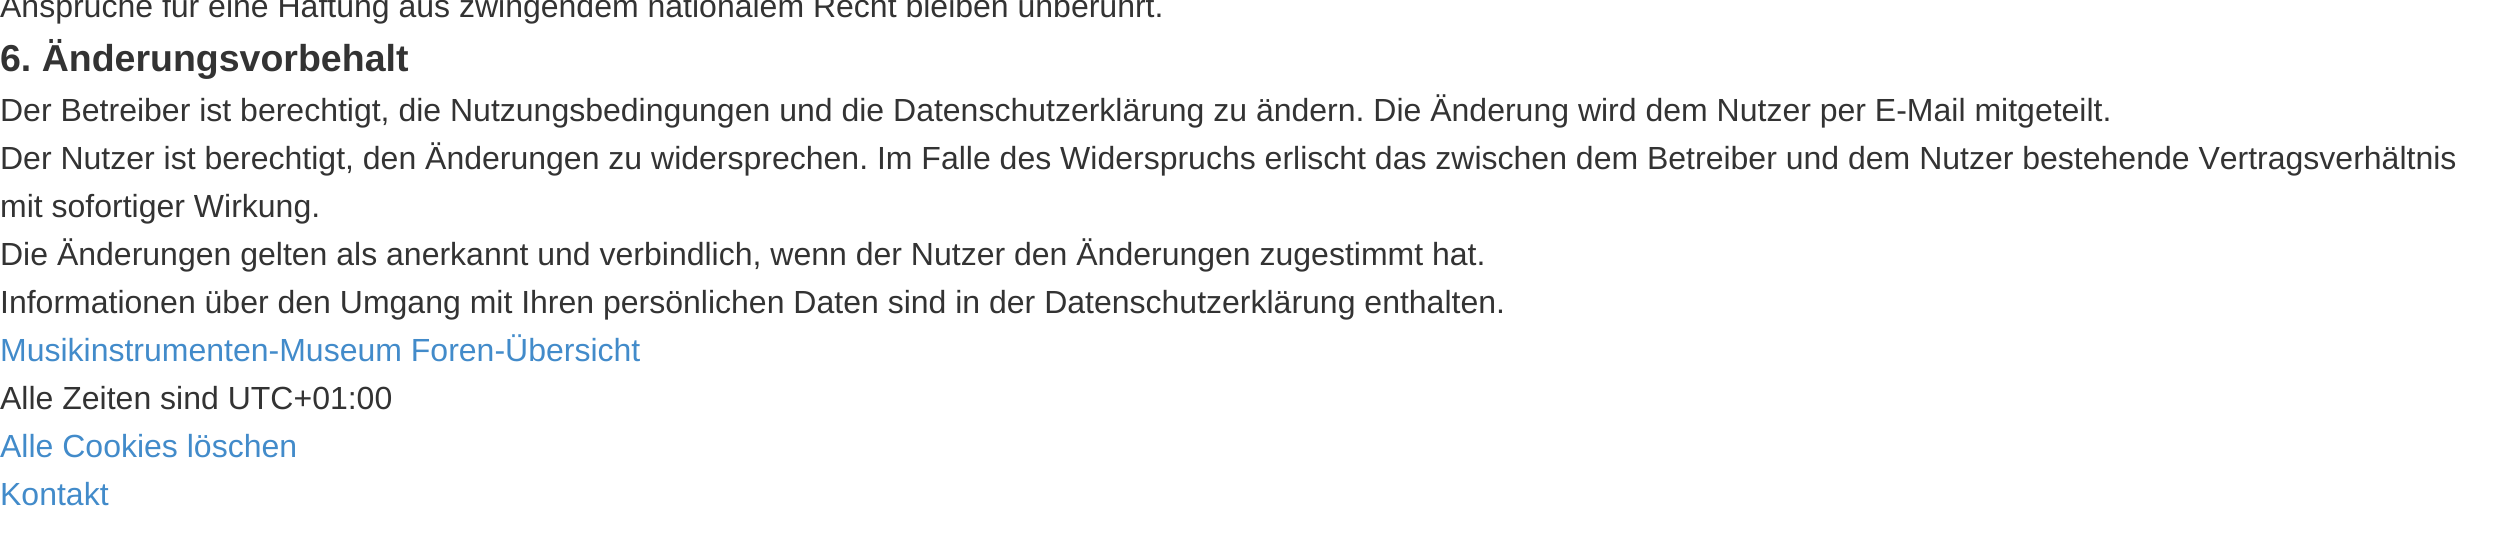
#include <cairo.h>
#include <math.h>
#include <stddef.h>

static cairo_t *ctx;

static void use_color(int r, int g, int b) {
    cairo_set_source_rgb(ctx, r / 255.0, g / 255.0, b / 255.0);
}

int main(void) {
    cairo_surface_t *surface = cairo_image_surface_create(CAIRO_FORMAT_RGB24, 2498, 544);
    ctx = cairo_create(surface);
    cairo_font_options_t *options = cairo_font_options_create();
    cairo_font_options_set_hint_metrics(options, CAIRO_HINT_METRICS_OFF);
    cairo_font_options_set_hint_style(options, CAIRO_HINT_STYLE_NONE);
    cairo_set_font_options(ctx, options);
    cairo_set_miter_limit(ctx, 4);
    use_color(255, 255, 255);
    cairo_paint(ctx);
    cairo_select_font_face(ctx, "Liberation Sans", CAIRO_FONT_SLANT_NORMAL, CAIRO_FONT_WEIGHT_NORMAL);
    cairo_set_font_size(ctx, 32);
    use_color(51, 51, 51);
    cairo_move_to(ctx, 0, 17);
    cairo_show_text(ctx, "Ansprüche für eine Haftung aus zwingendem nationalem Recht bleiben unberührt.");
    cairo_select_font_face(ctx, "Liberation Sans", CAIRO_FONT_SLANT_NORMAL, CAIRO_FONT_WEIGHT_BOLD);
    cairo_set_font_size(ctx, 37.5);
    cairo_move_to(ctx, 0, 71);
    cairo_show_text(ctx, "6. Änderungsvorbehalt");
    cairo_select_font_face(ctx, "Liberation Sans", CAIRO_FONT_SLANT_NORMAL, CAIRO_FONT_WEIGHT_NORMAL);
    cairo_set_font_size(ctx, 32);
    cairo_move_to(ctx, 0, 121);
    cairo_show_text(ctx, "Der Betreiber ist berechtigt, die Nutzungsbedingungen und die Datenschutzerklärung zu ändern. Die Änderung wird dem Nutzer per E-Mail mitgeteilt.");
    cairo_move_to(ctx, 0, 169);
    cairo_show_text(ctx, "Der Nutzer ist berechtigt, den Änderungen zu widersprechen. Im Falle des Widerspruchs erlischt das zwischen dem Betreiber und dem Nutzer bestehende Vertragsverhältnis");
    cairo_move_to(ctx, 0, 217);
    cairo_show_text(ctx, "mit sofortiger Wirkung.");
    cairo_move_to(ctx, 0, 265);
    cairo_show_text(ctx, "Die Änderungen gelten als anerkannt und verbindlich, wenn der Nutzer den Änderungen zugestimmt hat.");
    cairo_move_to(ctx, 0, 313);
    cairo_show_text(ctx, "Informationen über den Umgang mit Ihren persönlichen Daten sind in der Datenschutzerklärung enthalten.");
    use_color(66, 139, 202);
    cairo_move_to(ctx, 0, 361);
    cairo_show_text(ctx, "Musikinstrumenten-Museum Foren-Übersicht");
    use_color(51, 51, 51);
    cairo_move_to(ctx, 0, 409);
    cairo_show_text(ctx, "Alle Zeiten sind UTC+01:00");
    use_color(66, 139, 202);
    cairo_move_to(ctx, 0, 457);
    cairo_show_text(ctx, "Alle Cookies löschen");
    cairo_move_to(ctx, 0, 505);
    cairo_show_text(ctx, "Kontakt");
    cairo_surface_write_to_png(surface, "result.png");
    cairo_font_options_destroy(options);
    cairo_destroy(ctx);
    cairo_surface_destroy(surface);
    return 0;
}
